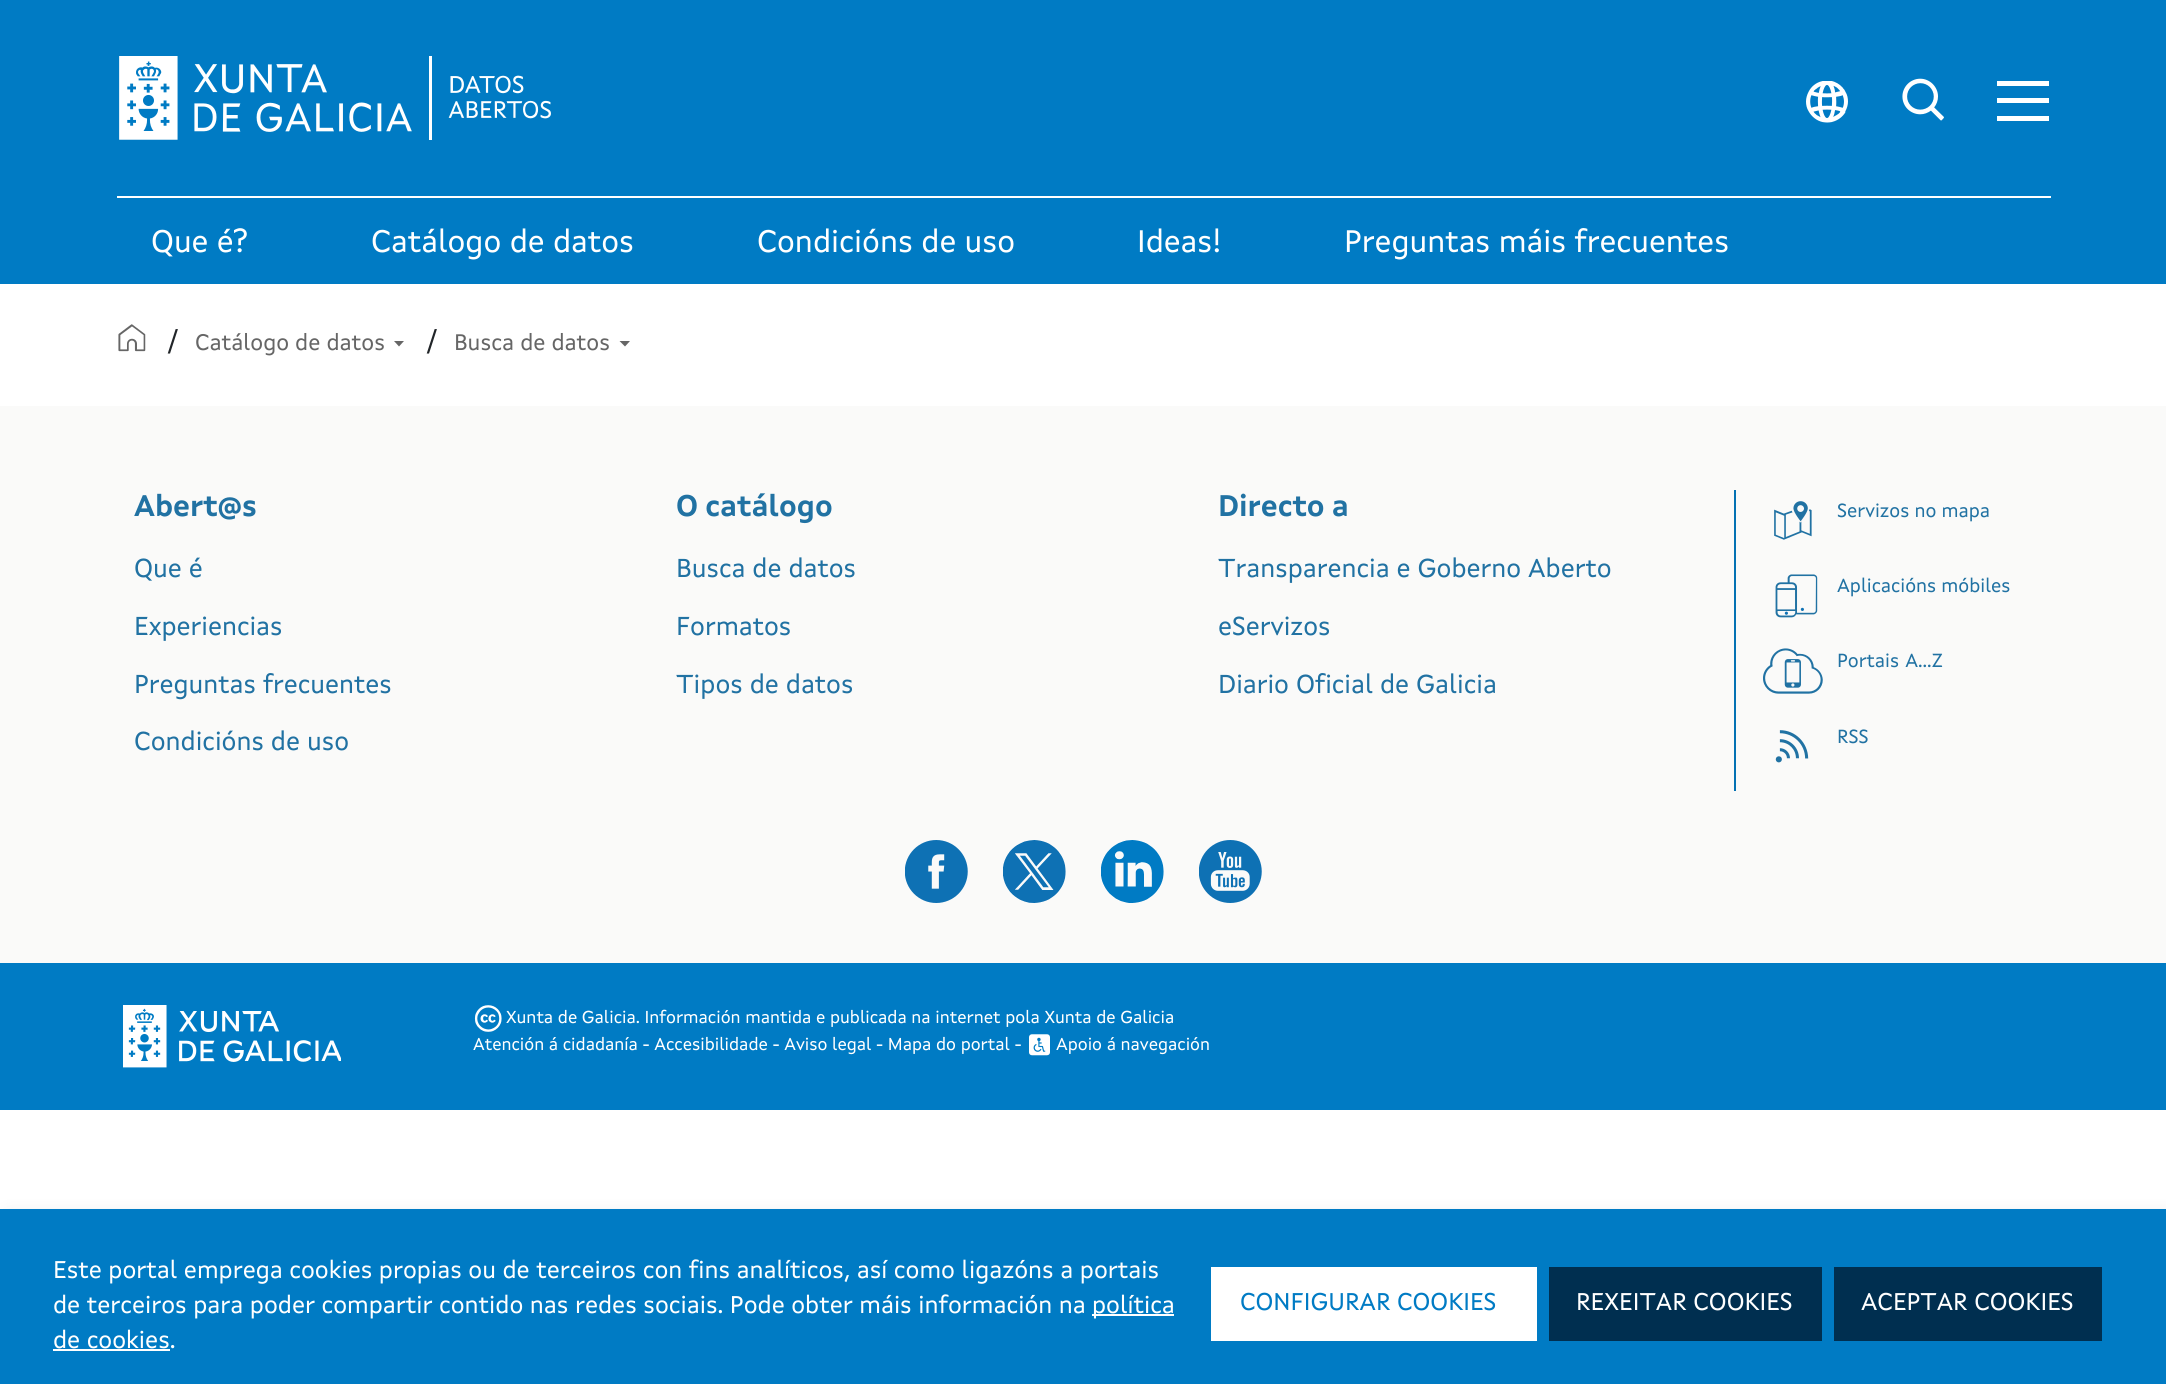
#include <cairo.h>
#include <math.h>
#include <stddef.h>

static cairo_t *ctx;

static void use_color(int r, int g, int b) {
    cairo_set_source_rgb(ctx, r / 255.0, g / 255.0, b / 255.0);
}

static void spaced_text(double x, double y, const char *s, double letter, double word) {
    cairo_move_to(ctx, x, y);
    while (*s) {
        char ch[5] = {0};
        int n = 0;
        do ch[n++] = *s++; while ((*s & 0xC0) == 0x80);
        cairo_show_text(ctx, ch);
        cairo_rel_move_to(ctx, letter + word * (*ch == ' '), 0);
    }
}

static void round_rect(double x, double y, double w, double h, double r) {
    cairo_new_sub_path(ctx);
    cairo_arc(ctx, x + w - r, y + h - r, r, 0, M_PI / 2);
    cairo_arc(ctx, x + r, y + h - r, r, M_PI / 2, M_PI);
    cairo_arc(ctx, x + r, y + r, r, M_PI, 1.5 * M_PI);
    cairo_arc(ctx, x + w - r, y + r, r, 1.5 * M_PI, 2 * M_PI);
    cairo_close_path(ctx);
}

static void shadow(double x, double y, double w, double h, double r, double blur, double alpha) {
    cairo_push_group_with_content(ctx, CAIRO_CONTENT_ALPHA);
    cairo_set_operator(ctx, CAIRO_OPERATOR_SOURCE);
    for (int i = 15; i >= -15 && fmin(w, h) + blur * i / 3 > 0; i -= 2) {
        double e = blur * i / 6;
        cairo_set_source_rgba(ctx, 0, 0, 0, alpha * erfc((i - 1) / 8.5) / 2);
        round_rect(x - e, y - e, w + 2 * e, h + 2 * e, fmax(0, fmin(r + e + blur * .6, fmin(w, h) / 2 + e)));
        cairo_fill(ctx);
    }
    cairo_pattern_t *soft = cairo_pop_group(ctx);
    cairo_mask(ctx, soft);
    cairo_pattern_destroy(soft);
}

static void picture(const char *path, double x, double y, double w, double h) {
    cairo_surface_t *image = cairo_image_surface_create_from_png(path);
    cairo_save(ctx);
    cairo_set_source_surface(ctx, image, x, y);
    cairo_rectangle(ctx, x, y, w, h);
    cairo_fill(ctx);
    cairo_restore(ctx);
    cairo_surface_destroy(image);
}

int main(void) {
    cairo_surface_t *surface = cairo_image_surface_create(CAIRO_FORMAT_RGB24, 2166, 1384);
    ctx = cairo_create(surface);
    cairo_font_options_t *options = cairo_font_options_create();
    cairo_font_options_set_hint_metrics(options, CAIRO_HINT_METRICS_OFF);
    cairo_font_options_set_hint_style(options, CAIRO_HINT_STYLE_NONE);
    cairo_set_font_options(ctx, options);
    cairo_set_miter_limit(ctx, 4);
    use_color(255, 255, 255);
    cairo_paint(ctx);
    use_color(0, 123, 196);
    cairo_rectangle(ctx, 0, 0, 2166, 284);
    cairo_fill(ctx);
    picture("img1.png", 119, 56, 432, 84);
    picture("img2.png", 1806, 81, 42, 42);
    picture("img3.png", 1902, 78, 42, 43);
    use_color(255, 255, 255);
    cairo_rectangle(ctx, 1997, 81, 52, 5);
    cairo_fill(ctx);
    cairo_rectangle(ctx, 1997, 98, 52, 5);
    cairo_fill(ctx);
    cairo_rectangle(ctx, 1997, 116, 52, 5);
    cairo_fill(ctx);
    cairo_rectangle(ctx, 117, 196, 1934, 2);
    cairo_fill(ctx);
    cairo_select_font_face(ctx, "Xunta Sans", CAIRO_FONT_SLANT_NORMAL, CAIRO_FONT_WEIGHT_NORMAL);
    cairo_set_font_size(ctx, 31.5);
    cairo_move_to(ctx, 151, 252);
    cairo_show_text(ctx, "Que é?");
    cairo_move_to(ctx, 371, 252);
    cairo_show_text(ctx, "Catálogo de datos");
    cairo_move_to(ctx, 757, 252);
    cairo_show_text(ctx, "Condicións de uso");
    cairo_move_to(ctx, 1137, 252);
    cairo_show_text(ctx, "Ideas!");
    cairo_move_to(ctx, 1344, 252);
    cairo_show_text(ctx, "Preguntas máis frecuentes");
    picture("img4.png", 118, 324, 28, 28);
    cairo_set_font_size(ctx, 28);
    use_color(33, 37, 41);
    cairo_move_to(ctx, 168, 350);
    cairo_show_text(ctx, "/");
    cairo_set_font_size(ctx, 22.75);
    use_color(102, 102, 102);
    cairo_move_to(ctx, 195, 350);
    cairo_show_text(ctx, "Catálogo de datos");
    cairo_new_path(ctx);
    cairo_move_to(ctx, 394, 341);
    cairo_line_to(ctx, 404, 341);
    cairo_line_to(ctx, 399, 346.5);
    cairo_close_path(ctx);
    cairo_fill(ctx);
    cairo_set_font_size(ctx, 28);
    use_color(33, 37, 41);
    cairo_move_to(ctx, 427, 350);
    cairo_show_text(ctx, "/");
    cairo_set_font_size(ctx, 22.75);
    use_color(102, 102, 102);
    cairo_move_to(ctx, 454, 350);
    cairo_show_text(ctx, "Busca de datos");
    cairo_new_path(ctx);
    cairo_move_to(ctx, 619.5, 341);
    cairo_line_to(ctx, 630, 341);
    cairo_line_to(ctx, 625, 346.5);
    cairo_close_path(ctx);
    cairo_fill(ctx);
    use_color(250, 250, 249);
    cairo_rectangle(ctx, 0, 406, 2166, 557);
    cairo_fill(ctx);
    cairo_select_font_face(ctx, "Xunta Sans", CAIRO_FONT_SLANT_NORMAL, CAIRO_FONT_WEIGHT_BOLD);
    cairo_set_font_size(ctx, 29.75);
    use_color(33, 114, 163);
    cairo_move_to(ctx, 134, 516);
    cairo_show_text(ctx, "Abert@s");
    cairo_select_font_face(ctx, "Xunta Sans", CAIRO_FONT_SLANT_NORMAL, CAIRO_FONT_WEIGHT_NORMAL);
    cairo_set_font_size(ctx, 26.25);
    cairo_move_to(ctx, 134, 577);
    cairo_show_text(ctx, "Que é");
    cairo_move_to(ctx, 134, 635);
    cairo_show_text(ctx, "Experiencias");
    cairo_move_to(ctx, 134, 693);
    cairo_show_text(ctx, "Preguntas frecuentes");
    cairo_move_to(ctx, 134, 750);
    cairo_show_text(ctx, "Condicións de uso");
    cairo_select_font_face(ctx, "Xunta Sans", CAIRO_FONT_SLANT_NORMAL, CAIRO_FONT_WEIGHT_BOLD);
    cairo_set_font_size(ctx, 29.75);
    cairo_move_to(ctx, 676, 516);
    cairo_show_text(ctx, "O catálogo");
    cairo_select_font_face(ctx, "Xunta Sans", CAIRO_FONT_SLANT_NORMAL, CAIRO_FONT_WEIGHT_NORMAL);
    cairo_set_font_size(ctx, 26.25);
    cairo_move_to(ctx, 676, 577);
    cairo_show_text(ctx, "Busca de datos");
    cairo_move_to(ctx, 676, 635);
    cairo_show_text(ctx, "Formatos");
    cairo_move_to(ctx, 676, 693);
    cairo_show_text(ctx, "Tipos de datos");
    cairo_select_font_face(ctx, "Xunta Sans", CAIRO_FONT_SLANT_NORMAL, CAIRO_FONT_WEIGHT_BOLD);
    cairo_set_font_size(ctx, 29.75);
    cairo_move_to(ctx, 1218, 516);
    cairo_show_text(ctx, "Directo a");
    cairo_select_font_face(ctx, "Xunta Sans", CAIRO_FONT_SLANT_NORMAL, CAIRO_FONT_WEIGHT_NORMAL);
    cairo_set_font_size(ctx, 26.25);
    cairo_move_to(ctx, 1218, 577);
    cairo_show_text(ctx, "Transparencia e Goberno Aberto");
    cairo_move_to(ctx, 1218, 635);
    cairo_show_text(ctx, "eServizos");
    cairo_move_to(ctx, 1218, 693);
    cairo_show_text(ctx, "Diario Oficial de Galicia");
    use_color(3, 113, 179);
    cairo_rectangle(ctx, 1734, 490, 2, 301);
    cairo_fill(ctx);
    picture("img5.png", 1774, 501, 38, 39);
    cairo_set_font_size(ctx, 19.25);
    use_color(33, 114, 163);
    cairo_move_to(ctx, 1837, 517);
    cairo_show_text(ctx, "Servizos no mapa");
    picture("img6.png", 1775, 574, 43, 44);
    cairo_move_to(ctx, 1837, 592);
    cairo_show_text(ctx, "Aplicacións móbiles");
    picture("img7.png", 1763, 648, 60, 46);
    spaced_text(1837, 667, "Portais A...Z", 0, 1);
    picture("img8.png", 1775, 730, 34, 33);
    cairo_move_to(ctx, 1837, 743);
    cairo_show_text(ctx, "RSS");
    picture("img9.png", 905, 840, 63, 63);
    picture("img10.png", 1003, 840, 63, 63);
    picture("img11.png", 1101, 840, 63, 63);
    picture("img12.png", 1199, 840, 63, 63);
    use_color(0, 123, 196);
    cairo_rectangle(ctx, 0, 963, 2166, 147);
    cairo_fill(ctx);
    picture("img13.png", 123, 1005, 218, 63);
    picture("img14.png", 474, 1005, 28, 27);
    cairo_set_font_size(ctx, 17.5);
    use_color(255, 255, 255);
    cairo_move_to(ctx, 506, 1023);
    cairo_show_text(ctx, "Xunta de Galicia. Información mantida e publicada na internet pola Xunta de Galicia");
    cairo_move_to(ctx, 473, 1050);
    cairo_show_text(ctx, "Atención á cidadanía - Accesibilidade - Aviso legal - Mapa do portal -");
    picture("img15.png", 1029, 1034, 21, 22);
    cairo_move_to(ctx, 1056, 1050);
    cairo_show_text(ctx, "Apoio á navegación");
    use_color(0, 0, 0);
    shadow(9, 1218, 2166, 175, 0, 9, 0.19);
    use_color(0, 123, 196);
    cairo_rectangle(ctx, 0, 1209, 2166, 175);
    cairo_fill(ctx);
    cairo_set_font_size(ctx, 24.5);
    use_color(255, 255, 255);
    cairo_move_to(ctx, 53, 1278);
    cairo_show_text(ctx, "Este portal emprega cookies propias ou de terceiros con fins analíticos, así como ligazóns a portais");
    cairo_move_to(ctx, 53, 1313);
    cairo_show_text(ctx, "de terceiros para poder compartir contido nas redes sociais. Pode obter máis información na");
    cairo_rectangle(ctx, 1092, 1314, 82, 2);
    cairo_fill(ctx);
    cairo_move_to(ctx, 1092, 1313);
    cairo_show_text(ctx, "política");
    cairo_move_to(ctx, 53, 1348);
    cairo_show_text(ctx, "de cookies.");
    cairo_rectangle(ctx, 53, 1349, 117, 2);
    cairo_fill(ctx);
    cairo_rectangle(ctx, 1211, 1267, 326, 74);
    cairo_fill(ctx);
    use_color(0, 123, 196);
    cairo_move_to(ctx, 1240, 1310);
    cairo_show_text(ctx, "CONFIGURAR COOKIES");
    use_color(0, 47, 80);
    cairo_rectangle(ctx, 1549, 1267, 273, 74);
    cairo_fill(ctx);
    use_color(255, 255, 255);
    cairo_move_to(ctx, 1576, 1310);
    cairo_show_text(ctx, "REXEITAR COOKIES");
    use_color(0, 47, 80);
    cairo_rectangle(ctx, 1834, 1267, 268, 74);
    cairo_fill(ctx);
    use_color(255, 255, 255);
    cairo_move_to(ctx, 1861, 1310);
    cairo_show_text(ctx, "ACEPTAR COOKIES");
    cairo_surface_write_to_png(surface, "result.png");
    cairo_font_options_destroy(options);
    cairo_destroy(ctx);
    cairo_surface_destroy(surface);
    return 0;
}
